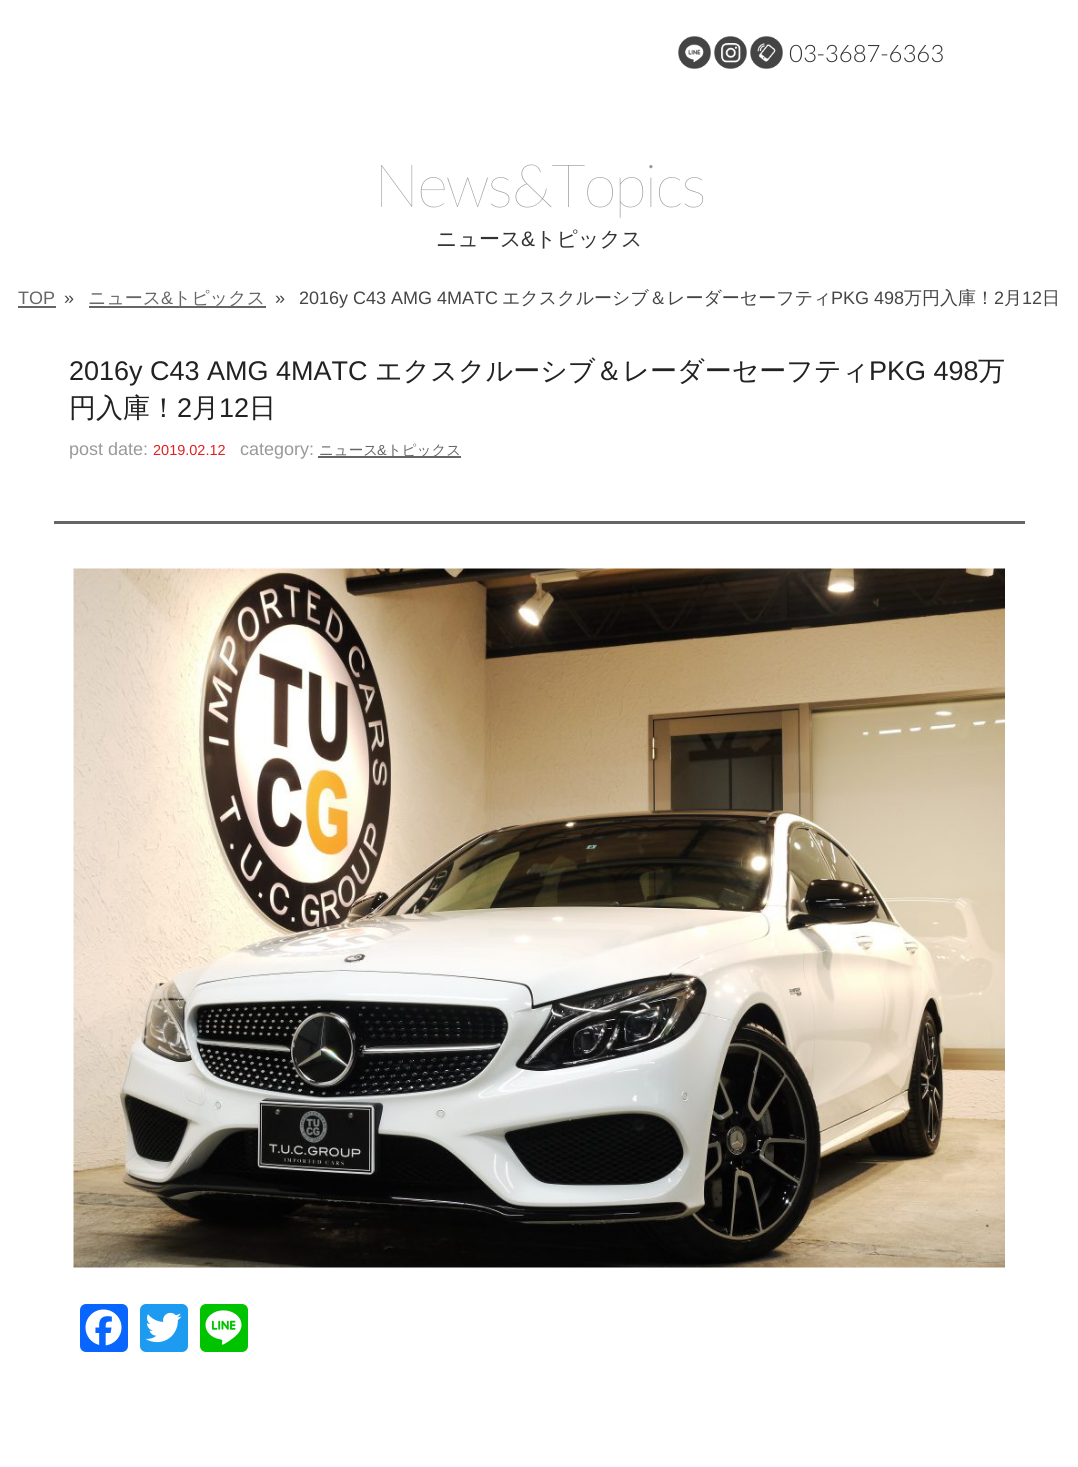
#include <cairo.h>
#include <math.h>
#include <stddef.h>

static cairo_t *ctx;

static void use_color(int r, int g, int b) {
    cairo_set_source_rgb(ctx, r / 255.0, g / 255.0, b / 255.0);
}

static void spaced_text(double x, double y, const char *s, double letter, double word) {
    cairo_move_to(ctx, x, y);
    while (*s) {
        char ch[5] = {0};
        int n = 0;
        do ch[n++] = *s++; while ((*s & 0xC0) == 0x80);
        cairo_show_text(ctx, ch);
        cairo_rel_move_to(ctx, letter + word * (*ch == ' '), 0);
    }
}

static void round_rect(double x, double y, double w, double h, double r) {
    cairo_new_sub_path(ctx);
    cairo_arc(ctx, x + w - r, y + h - r, r, 0, M_PI / 2);
    cairo_arc(ctx, x + r, y + h - r, r, M_PI / 2, M_PI);
    cairo_arc(ctx, x + r, y + r, r, M_PI, 1.5 * M_PI);
    cairo_arc(ctx, x + w - r, y + r, r, 1.5 * M_PI, 2 * M_PI);
    cairo_close_path(ctx);
}

static void picture(const char *path, double x, double y, double w, double h) {
    cairo_surface_t *image = cairo_image_surface_create_from_png(path);
    cairo_save(ctx);
    cairo_set_source_surface(ctx, image, x, y);
    cairo_rectangle(ctx, x, y, w, h);
    cairo_fill(ctx);
    cairo_restore(ctx);
    cairo_surface_destroy(image);
}

int main(void) {
    cairo_surface_t *surface = cairo_image_surface_create(CAIRO_FORMAT_RGB24, 1078, 1467);
    ctx = cairo_create(surface);
    cairo_font_options_t *options = cairo_font_options_create();
    cairo_font_options_set_hint_metrics(options, CAIRO_HINT_METRICS_OFF);
    cairo_font_options_set_hint_style(options, CAIRO_HINT_STYLE_NONE);
    cairo_set_font_options(ctx, options);
    cairo_set_miter_limit(ctx, 4);
    use_color(255, 255, 255);
    cairo_paint(ctx);
    picture("img1.png", 678, 36, 33, 33);
    picture("img2.png", 714, 36, 33, 33);
    picture("img3.png", 750, 36, 33, 33);
    cairo_select_font_face(ctx, "Lato Light", CAIRO_FONT_SLANT_NORMAL, CAIRO_FONT_WEIGHT_NORMAL);
    cairo_set_font_size(ctx, 24);
    use_color(51, 51, 51);
    cairo_move_to(ctx, 789, 62);
    cairo_show_text(ctx, "03-3687-6363");
    cairo_select_font_face(ctx, "Lato Thin", CAIRO_FONT_SLANT_NORMAL, CAIRO_FONT_WEIGHT_NORMAL);
    cairo_set_font_size(ctx, 60);
    use_color(153, 153, 153);
    spaced_text(374, 207, "News&Topics", -1.5, 0);
    cairo_select_font_face(ctx, "WenQuanYi Zen Hei Medium", CAIRO_FONT_SLANT_NORMAL, CAIRO_FONT_WEIGHT_NORMAL);
    cairo_set_font_size(ctx, 21);
    use_color(51, 51, 51);
    cairo_move_to(ctx, 436, 246);
    cairo_show_text(ctx, "ニュース");
    cairo_select_font_face(ctx, "Liberation Sans", CAIRO_FONT_SLANT_NORMAL, CAIRO_FONT_WEIGHT_NORMAL);
    cairo_move_to(ctx, 521, 246);
    cairo_show_text(ctx, "&");
    cairo_select_font_face(ctx, "WenQuanYi Zen Hei Medium", CAIRO_FONT_SLANT_NORMAL, CAIRO_FONT_WEIGHT_NORMAL);
    cairo_move_to(ctx, 535, 246);
    cairo_show_text(ctx, "トピックス");
    cairo_select_font_face(ctx, "Liberation Sans", CAIRO_FONT_SLANT_NORMAL, CAIRO_FONT_WEIGHT_NORMAL);
    cairo_set_font_size(ctx, 18);
    use_color(102, 102, 102);
    cairo_move_to(ctx, 18, 304);
    cairo_show_text(ctx, "TOP");
    cairo_rectangle(ctx, 18, 306, 38, 2);
    cairo_fill(ctx);
    use_color(69, 69, 69);
    cairo_move_to(ctx, 64, 304);
    cairo_show_text(ctx, "»");
    cairo_select_font_face(ctx, "WenQuanYi Zen Hei Medium", CAIRO_FONT_SLANT_NORMAL, CAIRO_FONT_WEIGHT_NORMAL);
    use_color(102, 102, 102);
    cairo_move_to(ctx, 88, 304);
    cairo_show_text(ctx, "ニュース");
    cairo_rectangle(ctx, 89, 306, 177, 2);
    cairo_fill(ctx);
    cairo_select_font_face(ctx, "Liberation Sans", CAIRO_FONT_SLANT_NORMAL, CAIRO_FONT_WEIGHT_NORMAL);
    cairo_move_to(ctx, 161, 304);
    cairo_show_text(ctx, "&");
    cairo_select_font_face(ctx, "WenQuanYi Zen Hei Medium", CAIRO_FONT_SLANT_NORMAL, CAIRO_FONT_WEIGHT_NORMAL);
    cairo_move_to(ctx, 173, 304);
    cairo_show_text(ctx, "トピックス");
    cairo_select_font_face(ctx, "Liberation Sans", CAIRO_FONT_SLANT_NORMAL, CAIRO_FONT_WEIGHT_NORMAL);
    use_color(69, 69, 69);
    cairo_move_to(ctx, 275, 304);
    cairo_show_text(ctx, "»");
    cairo_move_to(ctx, 299, 304);
    cairo_show_text(ctx, "2016y C43 AMG 4MATC");
    cairo_select_font_face(ctx, "WenQuanYi Zen Hei Medium", CAIRO_FONT_SLANT_NORMAL, CAIRO_FONT_WEIGHT_NORMAL);
    cairo_move_to(ctx, 502, 304);
    cairo_show_text(ctx, "エクスクルーシブ＆レーダーセーフティ");
    cairo_select_font_face(ctx, "Liberation Sans", CAIRO_FONT_SLANT_NORMAL, CAIRO_FONT_WEIGHT_NORMAL);
    cairo_move_to(ctx, 831, 304);
    cairo_show_text(ctx, "PKG 498");
    cairo_select_font_face(ctx, "WenQuanYi Zen Hei Medium", CAIRO_FONT_SLANT_NORMAL, CAIRO_FONT_WEIGHT_NORMAL);
    cairo_move_to(ctx, 904, 304);
    cairo_show_text(ctx, "万円入庫！");
    cairo_select_font_face(ctx, "Liberation Sans", CAIRO_FONT_SLANT_NORMAL, CAIRO_FONT_WEIGHT_NORMAL);
    cairo_move_to(ctx, 994, 304);
    cairo_show_text(ctx, "2");
    cairo_select_font_face(ctx, "WenQuanYi Zen Hei Medium", CAIRO_FONT_SLANT_NORMAL, CAIRO_FONT_WEIGHT_NORMAL);
    cairo_move_to(ctx, 1004, 304);
    cairo_show_text(ctx, "月");
    cairo_select_font_face(ctx, "Liberation Sans", CAIRO_FONT_SLANT_NORMAL, CAIRO_FONT_WEIGHT_NORMAL);
    cairo_move_to(ctx, 1022, 304);
    cairo_show_text(ctx, "12");
    cairo_select_font_face(ctx, "WenQuanYi Zen Hei Medium", CAIRO_FONT_SLANT_NORMAL, CAIRO_FONT_WEIGHT_NORMAL);
    cairo_move_to(ctx, 1042, 304);
    cairo_show_text(ctx, "日");
    use_color(102, 102, 102);
    cairo_rectangle(ctx, 54, 521, 971, 3);
    cairo_fill(ctx);
    cairo_select_font_face(ctx, "Liberation Sans", CAIRO_FONT_SLANT_NORMAL, CAIRO_FONT_WEIGHT_NORMAL);
    cairo_set_font_size(ctx, 27);
    use_color(34, 34, 34);
    cairo_move_to(ctx, 69, 380);
    cairo_show_text(ctx, "2016y C43 AMG 4MATC");
    cairo_select_font_face(ctx, "WenQuanYi Zen Hei Medium", CAIRO_FONT_SLANT_NORMAL, CAIRO_FONT_WEIGHT_NORMAL);
    cairo_move_to(ctx, 375, 380);
    cairo_show_text(ctx, "エクスクルーシブ＆レーダーセーフティ");
    cairo_select_font_face(ctx, "Liberation Sans", CAIRO_FONT_SLANT_NORMAL, CAIRO_FONT_WEIGHT_NORMAL);
    cairo_move_to(ctx, 869, 380);
    cairo_show_text(ctx, "PKG 498");
    cairo_select_font_face(ctx, "WenQuanYi Zen Hei Medium", CAIRO_FONT_SLANT_NORMAL, CAIRO_FONT_WEIGHT_NORMAL);
    cairo_move_to(ctx, 978, 380);
    cairo_show_text(ctx, "万");
    cairo_move_to(ctx, 69, 417);
    cairo_show_text(ctx, "円入庫！");
    cairo_select_font_face(ctx, "Liberation Sans", CAIRO_FONT_SLANT_NORMAL, CAIRO_FONT_WEIGHT_NORMAL);
    cairo_move_to(ctx, 177, 417);
    cairo_show_text(ctx, "2");
    cairo_select_font_face(ctx, "WenQuanYi Zen Hei Medium", CAIRO_FONT_SLANT_NORMAL, CAIRO_FONT_WEIGHT_NORMAL);
    cairo_move_to(ctx, 192, 417);
    cairo_show_text(ctx, "月");
    cairo_select_font_face(ctx, "Liberation Sans", CAIRO_FONT_SLANT_NORMAL, CAIRO_FONT_WEIGHT_NORMAL);
    cairo_move_to(ctx, 219, 417);
    cairo_show_text(ctx, "12");
    cairo_select_font_face(ctx, "WenQuanYi Zen Hei Medium", CAIRO_FONT_SLANT_NORMAL, CAIRO_FONT_WEIGHT_NORMAL);
    cairo_move_to(ctx, 249, 417);
    cairo_show_text(ctx, "日");
    cairo_select_font_face(ctx, "Liberation Sans", CAIRO_FONT_SLANT_NORMAL, CAIRO_FONT_WEIGHT_NORMAL);
    cairo_set_font_size(ctx, 18);
    use_color(153, 153, 153);
    cairo_move_to(ctx, 69, 455);
    cairo_show_text(ctx, "post date:");
    cairo_set_font_size(ctx, 14.5);
    use_color(226, 32, 35);
    cairo_move_to(ctx, 153, 455);
    cairo_show_text(ctx, "2019.02.12");
    cairo_set_font_size(ctx, 18);
    use_color(153, 153, 153);
    cairo_move_to(ctx, 240, 455);
    cairo_show_text(ctx, "category:");
    cairo_select_font_face(ctx, "WenQuanYi Zen Hei Medium", CAIRO_FONT_SLANT_NORMAL, CAIRO_FONT_WEIGHT_NORMAL);
    cairo_set_font_size(ctx, 14.5);
    use_color(102, 102, 102);
    cairo_move_to(ctx, 319, 455);
    cairo_show_text(ctx, "ニュース");
    cairo_rectangle(ctx, 318, 456, 143, 2);
    cairo_fill(ctx);
    cairo_select_font_face(ctx, "Liberation Sans", CAIRO_FONT_SLANT_NORMAL, CAIRO_FONT_WEIGHT_NORMAL);
    cairo_move_to(ctx, 377, 455);
    cairo_show_text(ctx, "&");
    cairo_select_font_face(ctx, "WenQuanYi Zen Hei Medium", CAIRO_FONT_SLANT_NORMAL, CAIRO_FONT_WEIGHT_NORMAL);
    cairo_move_to(ctx, 387, 455);
    cairo_show_text(ctx, "トピックス");
    picture("img4.png", 73, 568, 932, 700);
    use_color(8, 102, 255);
    round_rect(80, 1304, 48, 48, 6);
    cairo_fill(ctx);
    picture("img5.png", 85, 1309, 37, 37);
    use_color(29, 155, 240);
    round_rect(140, 1304, 48, 48, 6);
    cairo_fill(ctx);
    picture("img6.png", 145, 1312, 37, 31);
    use_color(0, 195, 0);
    round_rect(200, 1304, 48, 48, 6);
    cairo_fill(ctx);
    picture("img7.png", 205, 1310, 37, 35);
    cairo_surface_write_to_png(surface, "result.png");
    cairo_font_options_destroy(options);
    cairo_destroy(ctx);
    cairo_surface_destroy(surface);
    return 0;
}
